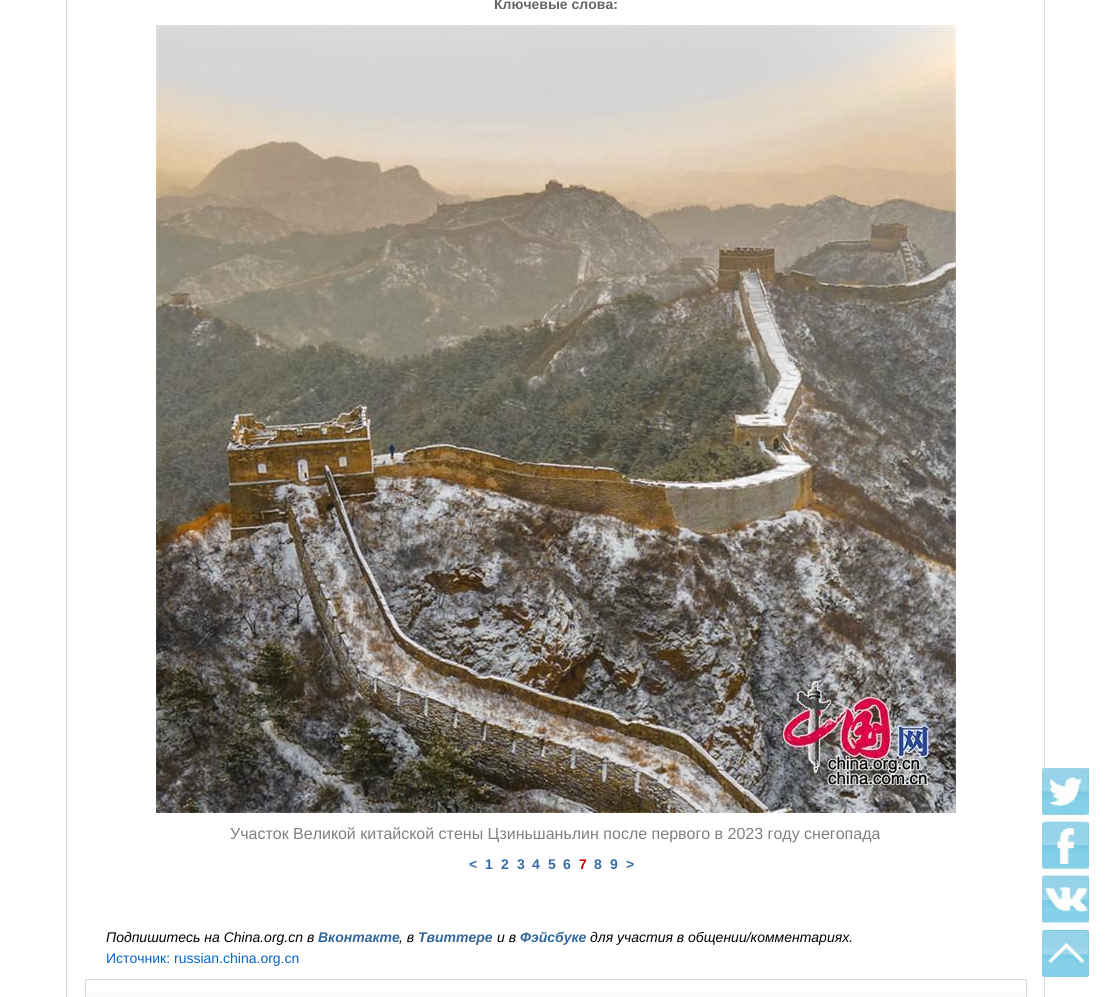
#include <cairo.h>
#include <math.h>
#include <stddef.h>

static cairo_t *ctx;

static void use_color(int r, int g, int b) {
    cairo_set_source_rgb(ctx, r / 255.0, g / 255.0, b / 255.0);
}

static void picture(const char *path, double x, double y, double w, double h) {
    cairo_surface_t *image = cairo_image_surface_create_from_png(path);
    cairo_save(ctx);
    cairo_set_source_surface(ctx, image, x, y);
    cairo_rectangle(ctx, x, y, w, h);
    cairo_fill(ctx);
    cairo_restore(ctx);
    cairo_surface_destroy(image);
}

int main(void) {
    cairo_surface_t *surface = cairo_image_surface_create(CAIRO_FORMAT_RGB24, 1112, 997);
    ctx = cairo_create(surface);
    cairo_font_options_t *options = cairo_font_options_create();
    cairo_font_options_set_hint_metrics(options, CAIRO_HINT_METRICS_OFF);
    cairo_font_options_set_hint_style(options, CAIRO_HINT_STYLE_NONE);
    cairo_set_font_options(ctx, options);
    cairo_set_miter_limit(ctx, 4);
    use_color(255, 255, 255);
    cairo_paint(ctx);
    use_color(219, 219, 219);
    cairo_rectangle(ctx, 1044, 0, 1, 997);
    cairo_fill(ctx);
    cairo_rectangle(ctx, 66, 0, 1, 997);
    cairo_fill(ctx);
    cairo_select_font_face(ctx, "Liberation Sans", CAIRO_FONT_SLANT_NORMAL, CAIRO_FONT_WEIGHT_BOLD);
    cairo_set_font_size(ctx, 14);
    use_color(102, 102, 102);
    cairo_move_to(ctx, 494, 9);
    cairo_show_text(ctx, "Ключевые слова:");
    picture("img1.png", 156, 25, 800, 788);
    cairo_select_font_face(ctx, "Liberation Sans", CAIRO_FONT_SLANT_NORMAL, CAIRO_FONT_WEIGHT_NORMAL);
    cairo_set_font_size(ctx, 16);
    use_color(128, 128, 128);
    cairo_move_to(ctx, 230, 839);
    cairo_show_text(ctx, "Участок Великой китайской стены Цзиньшаньлин после первого в 2023 году снегопада");
    cairo_select_font_face(ctx, "Liberation Sans", CAIRO_FONT_SLANT_NORMAL, CAIRO_FONT_WEIGHT_BOLD);
    cairo_set_font_size(ctx, 14);
    use_color(56, 107, 163);
    cairo_move_to(ctx, 469, 869);
    cairo_show_text(ctx, "<");
    cairo_move_to(ctx, 485, 869);
    cairo_show_text(ctx, "1");
    cairo_move_to(ctx, 501, 869);
    cairo_show_text(ctx, "2");
    cairo_move_to(ctx, 517, 869);
    cairo_show_text(ctx, "3");
    cairo_move_to(ctx, 532, 869);
    cairo_show_text(ctx, "4");
    cairo_move_to(ctx, 548, 869);
    cairo_show_text(ctx, "5");
    cairo_move_to(ctx, 563, 869);
    cairo_show_text(ctx, "6");
    use_color(204, 0, 0);
    cairo_move_to(ctx, 579, 869);
    cairo_show_text(ctx, "7");
    use_color(56, 107, 163);
    cairo_move_to(ctx, 594, 869);
    cairo_show_text(ctx, "8");
    cairo_move_to(ctx, 610, 869);
    cairo_show_text(ctx, "9");
    cairo_move_to(ctx, 626, 869);
    cairo_show_text(ctx, ">");
    cairo_select_font_face(ctx, "Liberation Sans", CAIRO_FONT_SLANT_ITALIC, CAIRO_FONT_WEIGHT_NORMAL);
    use_color(0, 0, 0);
    cairo_move_to(ctx, 106, 942);
    cairo_show_text(ctx, "Подпишитесь на China.org.cn в");
    cairo_select_font_face(ctx, "Liberation Sans", CAIRO_FONT_SLANT_ITALIC, CAIRO_FONT_WEIGHT_BOLD);
    use_color(51, 102, 153);
    cairo_move_to(ctx, 318, 942);
    cairo_show_text(ctx, "Вконтакте");
    cairo_select_font_face(ctx, "Liberation Sans", CAIRO_FONT_SLANT_ITALIC, CAIRO_FONT_WEIGHT_NORMAL);
    use_color(0, 0, 0);
    cairo_move_to(ctx, 399, 942);
    cairo_show_text(ctx, ", в");
    cairo_select_font_face(ctx, "Liberation Sans", CAIRO_FONT_SLANT_ITALIC, CAIRO_FONT_WEIGHT_BOLD);
    use_color(51, 102, 153);
    cairo_move_to(ctx, 418, 942);
    cairo_show_text(ctx, "Твиттере");
    cairo_select_font_face(ctx, "Liberation Sans", CAIRO_FONT_SLANT_ITALIC, CAIRO_FONT_WEIGHT_NORMAL);
    use_color(0, 0, 0);
    cairo_move_to(ctx, 497, 942);
    cairo_show_text(ctx, "и в");
    cairo_select_font_face(ctx, "Liberation Sans", CAIRO_FONT_SLANT_ITALIC, CAIRO_FONT_WEIGHT_BOLD);
    use_color(51, 102, 153);
    cairo_move_to(ctx, 520, 942);
    cairo_show_text(ctx, "Фэйсбуке");
    cairo_select_font_face(ctx, "Liberation Sans", CAIRO_FONT_SLANT_ITALIC, CAIRO_FONT_WEIGHT_NORMAL);
    use_color(0, 0, 0);
    cairo_move_to(ctx, 590, 942);
    cairo_show_text(ctx, "для участия в общении/комментариях.");
    cairo_select_font_face(ctx, "Liberation Sans", CAIRO_FONT_SLANT_NORMAL, CAIRO_FONT_WEIGHT_NORMAL);
    use_color(0, 102, 204);
    cairo_move_to(ctx, 106, 963);
    cairo_show_text(ctx, "Источник: russian.china.org.cn");
    cairo_rectangle(ctx, 85.5, 979.5, 941, 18);
    use_color(219, 219, 219);
    cairo_set_line_width(ctx, 1);
    cairo_stroke(ctx);
    use_color(250, 250, 250);
    cairo_rectangle(ctx, 86, 993, 940, 4);
    cairo_fill(ctx);
    picture("img2.png", 1042, 768, 47, 209);
    cairo_surface_write_to_png(surface, "result.png");
    cairo_font_options_destroy(options);
    cairo_destroy(ctx);
    cairo_surface_destroy(surface);
    return 0;
}
